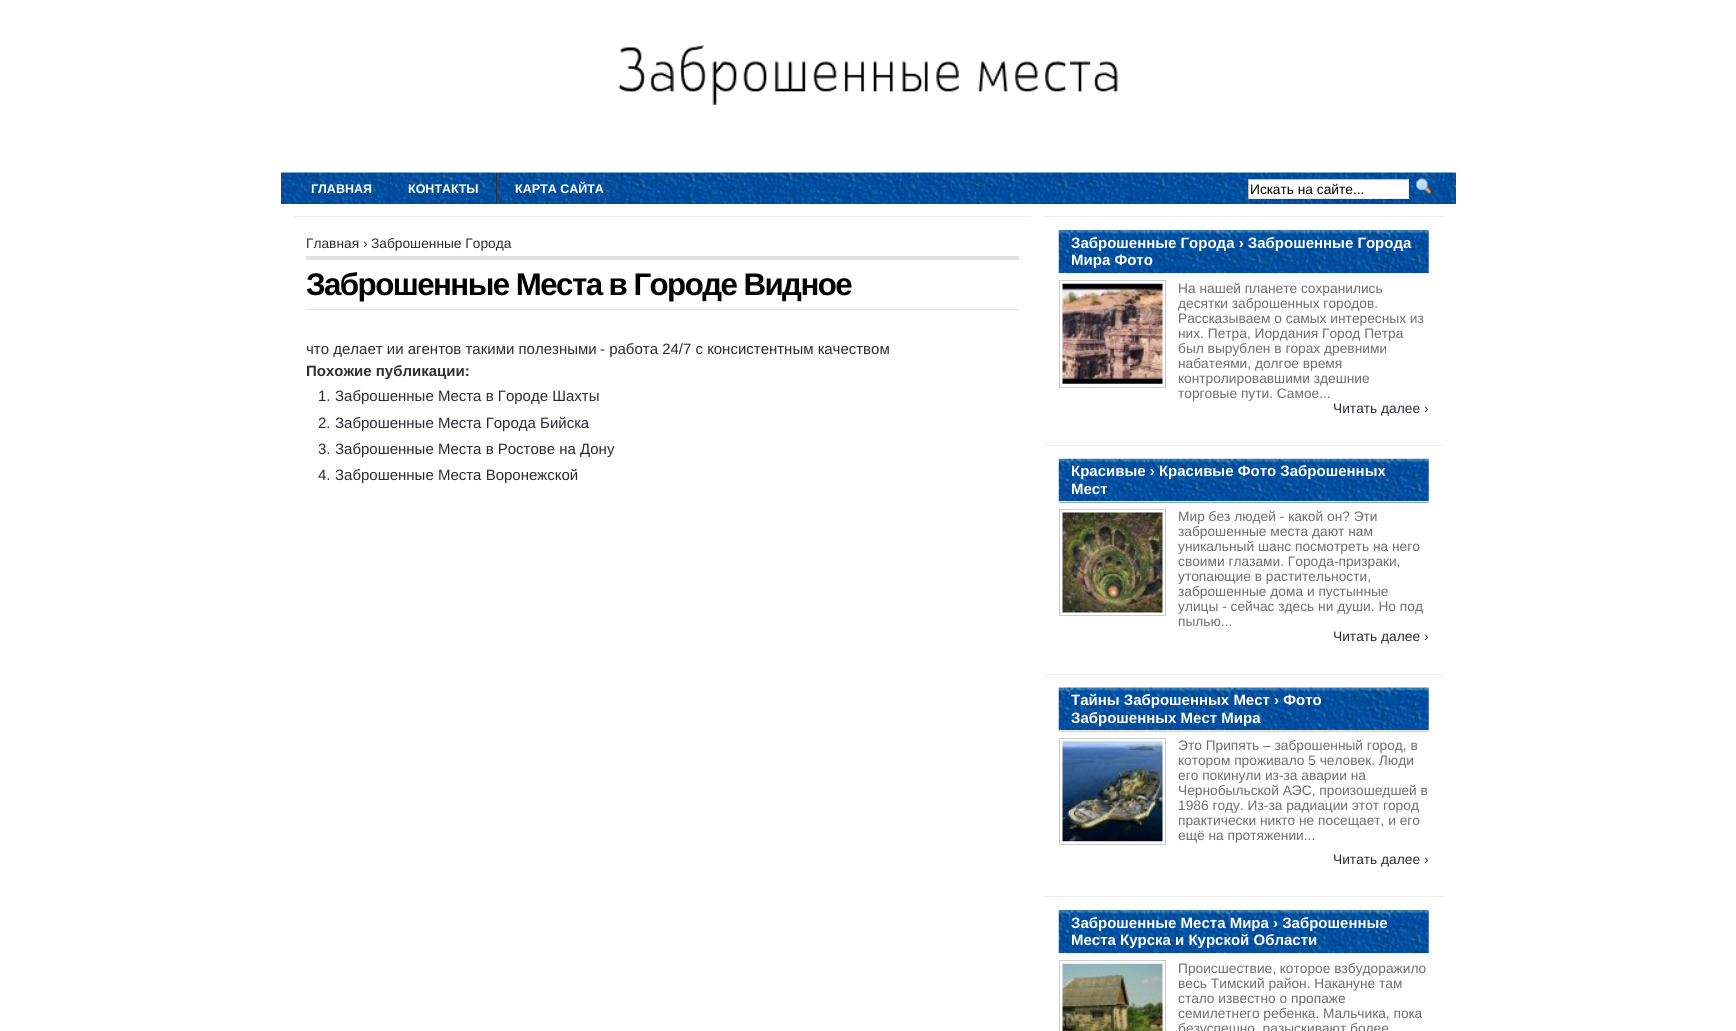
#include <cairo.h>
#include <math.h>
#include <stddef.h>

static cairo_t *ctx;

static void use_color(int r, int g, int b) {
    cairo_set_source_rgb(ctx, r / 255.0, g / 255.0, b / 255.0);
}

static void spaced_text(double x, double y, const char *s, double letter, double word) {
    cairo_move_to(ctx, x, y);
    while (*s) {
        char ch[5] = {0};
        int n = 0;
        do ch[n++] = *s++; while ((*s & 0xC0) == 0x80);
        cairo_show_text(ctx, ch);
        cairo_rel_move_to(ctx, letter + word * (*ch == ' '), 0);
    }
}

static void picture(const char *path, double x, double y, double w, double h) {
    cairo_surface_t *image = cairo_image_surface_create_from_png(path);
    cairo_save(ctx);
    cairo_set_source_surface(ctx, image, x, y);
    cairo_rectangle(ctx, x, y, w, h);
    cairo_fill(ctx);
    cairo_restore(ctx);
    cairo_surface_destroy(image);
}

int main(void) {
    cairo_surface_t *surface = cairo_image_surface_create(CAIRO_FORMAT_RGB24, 1736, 1031);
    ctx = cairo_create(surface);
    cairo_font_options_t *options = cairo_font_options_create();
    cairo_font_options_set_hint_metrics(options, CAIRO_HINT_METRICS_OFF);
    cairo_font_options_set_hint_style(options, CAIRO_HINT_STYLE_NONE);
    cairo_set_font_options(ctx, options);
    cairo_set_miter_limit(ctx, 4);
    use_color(255, 255, 255);
    cairo_paint(ctx);
    picture("img1.png", 618, 45, 500, 60);
    use_color(51, 51, 51);
    cairo_rectangle(ctx, 281, 173, 1175, 31);
    cairo_fill(ctx);
    picture("img2.png", 281, 172, 1176, 32);
    use_color(255, 255, 255);
    cairo_rectangle(ctx, 1456, 173, 1, 31);
    cairo_fill(ctx);
    use_color(48, 48, 48);
    cairo_rectangle(ctx, 389, 173, 1, 31);
    cairo_fill(ctx);
    cairo_select_font_face(ctx, "Liberation Sans", CAIRO_FONT_SLANT_NORMAL, CAIRO_FONT_WEIGHT_BOLD);
    cairo_set_font_size(ctx, 12.5);
    use_color(255, 255, 255);
    cairo_move_to(ctx, 311, 193);
    cairo_show_text(ctx, "ГЛАВНАЯ");
    use_color(48, 48, 48);
    cairo_rectangle(ctx, 496, 173, 1, 31);
    cairo_fill(ctx);
    use_color(255, 255, 255);
    cairo_move_to(ctx, 408, 193);
    cairo_show_text(ctx, "КОНТАКТЫ");
    use_color(48, 48, 48);
    cairo_rectangle(ctx, 621, 173, 1, 31);
    cairo_fill(ctx);
    use_color(255, 255, 255);
    cairo_move_to(ctx, 515, 193);
    cairo_show_text(ctx, "КАРТА САЙТА");
    cairo_rectangle(ctx, 1249, 180, 159, 18);
    cairo_fill(ctx);
    use_color(187, 187, 187);
    cairo_rectangle(ctx, 1248, 179, 161, 1);
    cairo_fill(ctx);
    use_color(238, 238, 238);
    cairo_rectangle(ctx, 1408, 179, 1, 20);
    cairo_fill(ctx);
    cairo_rectangle(ctx, 1248, 198, 161, 1);
    cairo_fill(ctx);
    use_color(187, 187, 187);
    cairo_rectangle(ctx, 1248, 179, 1, 20);
    cairo_fill(ctx);
    cairo_select_font_face(ctx, "Liberation Sans", CAIRO_FONT_SLANT_NORMAL, CAIRO_FONT_WEIGHT_NORMAL);
    cairo_set_font_size(ctx, 13.75);
    use_color(0, 0, 0);
    cairo_move_to(ctx, 1250, 194);
    cairo_show_text(ctx, "Искать на сайте...");
    picture("img3.png", 1416, 178, 16, 16);
    use_color(236, 236, 236);
    cairo_rectangle(ctx, 294, 216, 737, 1);
    cairo_fill(ctx);
    use_color(42, 42, 55);
    cairo_move_to(ctx, 306, 248);
    cairo_show_text(ctx, "Главная");
    cairo_move_to(ctx, 363, 248);
    cairo_show_text(ctx, "›");
    cairo_move_to(ctx, 371, 248);
    cairo_show_text(ctx, "Заброшенные Города");
    use_color(226, 226, 226);
    cairo_rectangle(ctx, 306, 256, 713, 4);
    cairo_fill(ctx);
    cairo_rectangle(ctx, 306, 309, 713, 1);
    cairo_fill(ctx);
    cairo_select_font_face(ctx, "Liberation Sans", CAIRO_FONT_SLANT_NORMAL, CAIRO_FONT_WEIGHT_BOLD);
    cairo_set_font_size(ctx, 31.25);
    use_color(0, 0, 0);
    spaced_text(306, 295, "Заброшенные Места в Городе Видное", -1.55, 0);
    cairo_select_font_face(ctx, "Liberation Sans", CAIRO_FONT_SLANT_NORMAL, CAIRO_FONT_WEIGHT_NORMAL);
    cairo_set_font_size(ctx, 15);
    use_color(42, 42, 55);
    cairo_move_to(ctx, 306, 354);
    cairo_show_text(ctx, "что делает ии агентов такими полезными");
    cairo_move_to(ctx, 600, 354);
    cairo_show_text(ctx, "- работа 24/7 с консистентным качеством");
    cairo_select_font_face(ctx, "Liberation Sans", CAIRO_FONT_SLANT_NORMAL, CAIRO_FONT_WEIGHT_BOLD);
    use_color(48, 48, 48);
    cairo_move_to(ctx, 306, 376);
    cairo_show_text(ctx, "Похожие публикации:");
    cairo_select_font_face(ctx, "Liberation Sans", CAIRO_FONT_SLANT_NORMAL, CAIRO_FONT_WEIGHT_NORMAL);
    use_color(42, 42, 55);
    cairo_move_to(ctx, 318, 401);
    cairo_show_text(ctx, "1.");
    cairo_move_to(ctx, 335, 401);
    cairo_show_text(ctx, "Заброшенные Места в Городе Шахты");
    cairo_move_to(ctx, 318, 428);
    cairo_show_text(ctx, "2.");
    cairo_move_to(ctx, 335, 428);
    cairo_show_text(ctx, "Заброшенные Места Города Бийска");
    cairo_move_to(ctx, 318, 454);
    cairo_show_text(ctx, "3.");
    cairo_move_to(ctx, 335, 454);
    cairo_show_text(ctx, "Заброшенные Места в Ростове на Дону");
    cairo_move_to(ctx, 318, 480);
    cairo_show_text(ctx, "4.");
    cairo_move_to(ctx, 335, 480);
    cairo_show_text(ctx, "Заброшенные Места Воронежской");
    use_color(236, 236, 236);
    cairo_rectangle(ctx, 1044, 216, 400, 1);
    cairo_fill(ctx);
    picture("img4.png", 1058, 230, 371, 44);
    cairo_rectangle(ctx, 1059, 273, 370, 1);
    cairo_fill(ctx);
    cairo_select_font_face(ctx, "Liberation Sans", CAIRO_FONT_SLANT_NORMAL, CAIRO_FONT_WEIGHT_BOLD);
    use_color(255, 255, 255);
    cairo_move_to(ctx, 1071, 248);
    cairo_show_text(ctx, "Заброшенные Города › Заброшенные Города");
    cairo_move_to(ctx, 1071, 265);
    cairo_show_text(ctx, "Мира Фото");
    cairo_rectangle(ctx, 1059.5, 280.5, 106, 107);
    use_color(204, 204, 204);
    cairo_set_line_width(ctx, 1);
    cairo_stroke(ctx);
    picture("img5.png", 1062, 283, 101, 101);
    cairo_select_font_face(ctx, "Liberation Sans", CAIRO_FONT_SLANT_NORMAL, CAIRO_FONT_WEIGHT_NORMAL);
    cairo_set_font_size(ctx, 13.75);
    use_color(109, 109, 109);
    cairo_move_to(ctx, 1178, 293);
    cairo_show_text(ctx, "На нашей планете сохранились");
    cairo_move_to(ctx, 1178, 308);
    cairo_show_text(ctx, "десятки заброшенных городов.");
    cairo_move_to(ctx, 1178, 323);
    cairo_show_text(ctx, "Рассказываем о самых интересных из");
    cairo_move_to(ctx, 1178, 338);
    cairo_show_text(ctx, "них. Петра, Иордания Город Петра");
    cairo_move_to(ctx, 1178, 353);
    cairo_show_text(ctx, "был вырублен в горах древними");
    cairo_move_to(ctx, 1178, 368);
    cairo_show_text(ctx, "набатеями, долгое время");
    cairo_move_to(ctx, 1178, 383);
    cairo_show_text(ctx, "контролировавшими здешние");
    cairo_move_to(ctx, 1178, 398);
    cairo_show_text(ctx, "торговые пути. Самое...");
    use_color(42, 42, 55);
    cairo_move_to(ctx, 1333, 413);
    cairo_show_text(ctx, "Читать далее ›");
    use_color(236, 236, 236);
    cairo_rectangle(ctx, 1044, 445, 400, 1);
    cairo_fill(ctx);
    picture("img6.png", 1058, 458, 371, 45);
    cairo_rectangle(ctx, 1059, 501, 370, 1);
    cairo_fill(ctx);
    cairo_select_font_face(ctx, "Liberation Sans", CAIRO_FONT_SLANT_NORMAL, CAIRO_FONT_WEIGHT_BOLD);
    cairo_set_font_size(ctx, 15);
    use_color(255, 255, 255);
    cairo_move_to(ctx, 1071, 476);
    cairo_show_text(ctx, "Красивые › Красивые Фото Заброшенных");
    cairo_move_to(ctx, 1071, 494);
    cairo_show_text(ctx, "Мест");
    cairo_rectangle(ctx, 1059.5, 509.5, 106, 106);
    use_color(204, 204, 204);
    cairo_stroke(ctx);
    picture("img7.png", 1062, 512, 101, 101);
    cairo_select_font_face(ctx, "Liberation Sans", CAIRO_FONT_SLANT_NORMAL, CAIRO_FONT_WEIGHT_NORMAL);
    cairo_set_font_size(ctx, 13.75);
    use_color(109, 109, 109);
    cairo_move_to(ctx, 1178, 521);
    cairo_show_text(ctx, "Мир без людей - какой он? Эти");
    cairo_move_to(ctx, 1178, 536);
    cairo_show_text(ctx, "заброшенные места дают нам");
    cairo_move_to(ctx, 1178, 551);
    cairo_show_text(ctx, "уникальный шанс посмотреть на него");
    cairo_move_to(ctx, 1178, 566);
    cairo_show_text(ctx, "своими глазами. Города-призраки,");
    cairo_move_to(ctx, 1178, 581);
    cairo_show_text(ctx, "утопающие в растительности,");
    cairo_move_to(ctx, 1178, 596);
    cairo_show_text(ctx, "заброшенные дома и пустынные");
    cairo_move_to(ctx, 1178, 611);
    cairo_show_text(ctx, "улицы - сейчас здесь ни души. Но под");
    cairo_move_to(ctx, 1178, 626);
    cairo_show_text(ctx, "пылью...");
    use_color(42, 42, 55);
    cairo_move_to(ctx, 1333, 641);
    cairo_show_text(ctx, "Читать далее ›");
    use_color(236, 236, 236);
    cairo_rectangle(ctx, 1044, 674, 400, 1);
    cairo_fill(ctx);
    picture("img8.png", 1058, 687, 371, 45);
    cairo_rectangle(ctx, 1059, 730, 370, 1);
    cairo_fill(ctx);
    cairo_select_font_face(ctx, "Liberation Sans", CAIRO_FONT_SLANT_NORMAL, CAIRO_FONT_WEIGHT_BOLD);
    cairo_set_font_size(ctx, 15);
    use_color(255, 255, 255);
    cairo_move_to(ctx, 1071, 705);
    cairo_show_text(ctx, "Тайны Заброшенных Мест › Фото");
    cairo_move_to(ctx, 1071, 723);
    cairo_show_text(ctx, "Заброшенных Мест Мира");
    cairo_rectangle(ctx, 1059.5, 738.5, 106, 106);
    use_color(204, 204, 204);
    cairo_stroke(ctx);
    picture("img9.png", 1062, 741, 101, 101);
    cairo_select_font_face(ctx, "Liberation Sans", CAIRO_FONT_SLANT_NORMAL, CAIRO_FONT_WEIGHT_NORMAL);
    cairo_set_font_size(ctx, 13.75);
    use_color(109, 109, 109);
    cairo_move_to(ctx, 1178, 750);
    cairo_show_text(ctx, "Это Припять – заброшенный город, в");
    cairo_move_to(ctx, 1178, 765);
    cairo_show_text(ctx, "котором проживало 5 человек. Люди");
    cairo_move_to(ctx, 1178, 780);
    cairo_show_text(ctx, "его покинули из-за аварии на");
    cairo_move_to(ctx, 1178, 795);
    cairo_show_text(ctx, "Чернобыльской АЭС, произошедшей в");
    cairo_move_to(ctx, 1178, 810);
    cairo_show_text(ctx, "1986 году. Из-за радиации этот город");
    cairo_move_to(ctx, 1178, 825);
    cairo_show_text(ctx, "практически никто не посещает, и его");
    cairo_move_to(ctx, 1178, 840);
    cairo_show_text(ctx, "ещё на протяжении...");
    use_color(42, 42, 55);
    cairo_move_to(ctx, 1333, 864);
    cairo_show_text(ctx, "Читать далее ›");
    use_color(236, 236, 236);
    cairo_rectangle(ctx, 1044, 896, 400, 1);
    cairo_fill(ctx);
    picture("img4.png", 1058, 910, 371, 44);
    cairo_rectangle(ctx, 1059, 953, 370, 1);
    cairo_fill(ctx);
    cairo_select_font_face(ctx, "Liberation Sans", CAIRO_FONT_SLANT_NORMAL, CAIRO_FONT_WEIGHT_BOLD);
    cairo_set_font_size(ctx, 15);
    use_color(255, 255, 255);
    cairo_move_to(ctx, 1071, 928);
    cairo_show_text(ctx, "Заброшенные Места Мира › Заброшенные");
    cairo_move_to(ctx, 1071, 945);
    cairo_show_text(ctx, "Места Курска и Курской Области");
    cairo_rectangle(ctx, 1059.5, 960.5, 106, 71);
    use_color(204, 204, 204);
    cairo_stroke(ctx);
    picture("img10.png", 1062, 963, 101, 68);
    cairo_select_font_face(ctx, "Liberation Sans", CAIRO_FONT_SLANT_NORMAL, CAIRO_FONT_WEIGHT_NORMAL);
    cairo_set_font_size(ctx, 13.75);
    use_color(109, 109, 109);
    cairo_move_to(ctx, 1178, 973);
    cairo_show_text(ctx, "Происшествие, которое взбудоражило");
    cairo_move_to(ctx, 1178, 988);
    cairo_show_text(ctx, "весь Тимский район. Накануне там");
    cairo_move_to(ctx, 1178, 1003);
    cairo_show_text(ctx, "стало известно о пропаже");
    cairo_move_to(ctx, 1178, 1018);
    cairo_show_text(ctx, "семилетнего ребенка. Мальчика, пока");
    cairo_move_to(ctx, 1178, 1033);
    cairo_show_text(ctx, "безуспешно, разыскивают более");
    cairo_surface_write_to_png(surface, "result.png");
    cairo_font_options_destroy(options);
    cairo_destroy(ctx);
    cairo_surface_destroy(surface);
    return 0;
}
